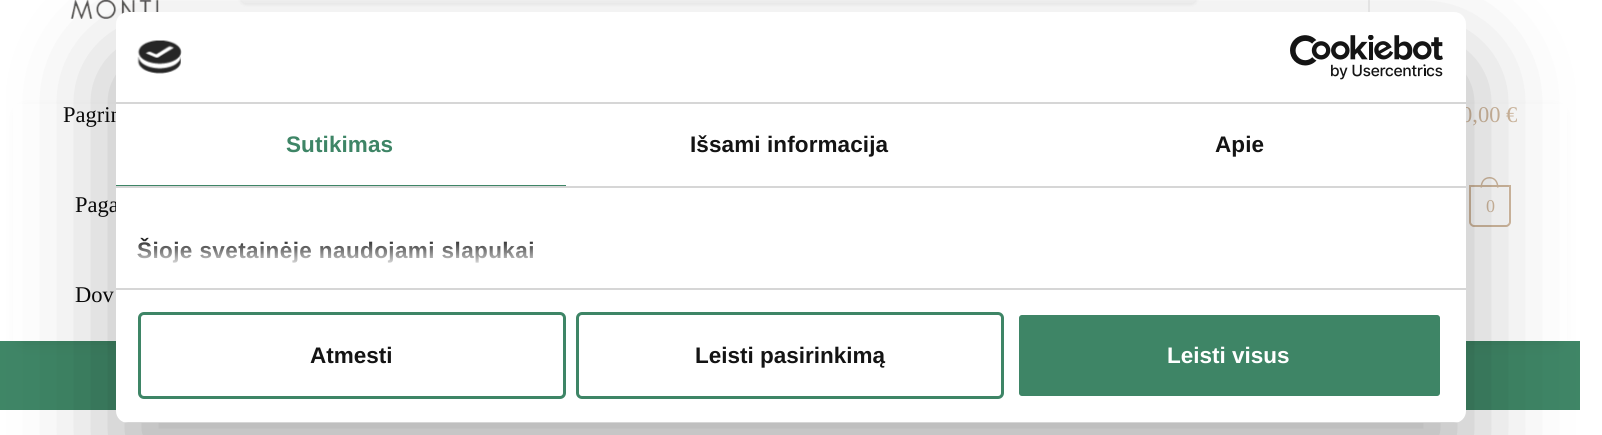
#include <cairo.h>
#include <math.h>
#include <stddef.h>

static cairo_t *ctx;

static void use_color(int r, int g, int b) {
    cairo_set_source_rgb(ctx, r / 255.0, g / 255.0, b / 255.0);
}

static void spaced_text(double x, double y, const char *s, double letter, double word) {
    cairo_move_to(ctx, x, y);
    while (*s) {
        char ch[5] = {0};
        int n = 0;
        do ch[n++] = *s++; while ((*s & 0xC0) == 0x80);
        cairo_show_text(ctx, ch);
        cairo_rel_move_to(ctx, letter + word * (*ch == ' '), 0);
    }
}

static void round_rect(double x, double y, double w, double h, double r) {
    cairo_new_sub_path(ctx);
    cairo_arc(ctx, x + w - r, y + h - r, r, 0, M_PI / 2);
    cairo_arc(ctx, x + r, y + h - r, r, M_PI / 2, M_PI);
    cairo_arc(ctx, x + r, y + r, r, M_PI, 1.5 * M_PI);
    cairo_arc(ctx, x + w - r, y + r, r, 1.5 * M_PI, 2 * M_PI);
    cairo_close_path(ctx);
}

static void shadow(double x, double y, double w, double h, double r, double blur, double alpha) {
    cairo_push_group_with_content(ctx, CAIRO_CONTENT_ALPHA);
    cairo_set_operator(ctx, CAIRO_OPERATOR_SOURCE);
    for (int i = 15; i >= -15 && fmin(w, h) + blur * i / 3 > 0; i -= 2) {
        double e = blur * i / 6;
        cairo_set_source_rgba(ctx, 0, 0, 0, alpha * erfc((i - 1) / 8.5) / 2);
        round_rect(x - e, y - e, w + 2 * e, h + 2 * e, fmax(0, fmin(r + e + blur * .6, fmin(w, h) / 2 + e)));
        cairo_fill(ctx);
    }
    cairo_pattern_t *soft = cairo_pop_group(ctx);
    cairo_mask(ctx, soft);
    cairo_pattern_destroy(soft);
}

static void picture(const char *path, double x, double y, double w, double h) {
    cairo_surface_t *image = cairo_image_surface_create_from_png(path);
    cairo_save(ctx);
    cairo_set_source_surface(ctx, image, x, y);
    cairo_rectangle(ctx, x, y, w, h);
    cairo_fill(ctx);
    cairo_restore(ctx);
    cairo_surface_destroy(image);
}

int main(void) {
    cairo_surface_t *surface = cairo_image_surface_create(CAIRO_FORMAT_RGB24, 1602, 435);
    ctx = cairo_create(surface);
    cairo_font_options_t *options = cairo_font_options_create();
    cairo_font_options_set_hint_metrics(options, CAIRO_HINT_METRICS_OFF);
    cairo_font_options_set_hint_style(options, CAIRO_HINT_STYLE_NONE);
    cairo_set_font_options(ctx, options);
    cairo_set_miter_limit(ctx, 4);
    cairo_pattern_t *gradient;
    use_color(255, 255, 255);
    cairo_paint(ctx);
    picture("img1.png", 70, 0, 89, 19);
    use_color(0, 0, 0);
    shadow(240, -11, 957, 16, 6, 1.5, 0.05);
    use_color(248, 248, 248);
    round_rect(240, -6, 957, 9, 6);
    cairo_fill(ctx);
    use_color(238, 238, 238);
    cairo_rectangle(ctx, 1368, 0, 2, 12);
    cairo_fill(ctx);
    use_color(63, 134, 102);
    cairo_rectangle(ctx, 0, 341, 1580, 69);
    cairo_fill(ctx);
    use_color(0, 0, 0);
    shadow(23, 114, 1534, 227, 0, 7.5, 0.1);
    use_color(255, 255, 255);
    cairo_rectangle(ctx, 13, 104, 1554, 237);
    cairo_fill(ctx);
    cairo_select_font_face(ctx, "Liberation Serif", CAIRO_FONT_SLANT_NORMAL, CAIRO_FONT_WEIGHT_NORMAL);
    cairo_set_font_size(ctx, 22.5);
    use_color(10, 10, 10);
    cairo_move_to(ctx, 63, 122);
    cairo_show_text(ctx, "Pagrin");
    cairo_move_to(ctx, 75, 212);
    cairo_show_text(ctx, "Paga");
    cairo_move_to(ctx, 75, 302);
    cairo_show_text(ctx, "Dov");
    use_color(209, 185, 159);
    cairo_move_to(ctx, 1461, 122);
    cairo_show_text(ctx, "0,00 €");
    cairo_new_path(ctx);
    cairo_move_to(ctx, 1470, 186);
    cairo_line_to(ctx, 1510, 186);
    cairo_line_to(ctx, 1510, 222);
    cairo_curve_to(ctx, 1510, 224, 1508, 226, 1506, 226);
    cairo_line_to(ctx, 1474, 226);
    cairo_curve_to(ctx, 1472, 226, 1470, 224, 1470, 222);
    cairo_close_path(ctx);
    cairo_stroke(ctx);
    cairo_set_fill_rule(ctx, CAIRO_FILL_RULE_EVEN_ODD);
    cairo_new_path(ctx);
    cairo_move_to(ctx, 1489.5, 177);
    cairo_curve_to(ctx, 1495.5, 177, 1498.5, 182, 1498.5, 187.5);
    cairo_line_to(ctx, 1480.5, 187.5);
    cairo_curve_to(ctx, 1480.5, 182, 1483.5, 177, 1489.5, 177);
    cairo_close_path(ctx);
    cairo_move_to(ctx, 1489.5, 178.5);
    cairo_curve_to(ctx, 1495, 178.5, 1497, 183, 1497, 187.5);
    cairo_line_to(ctx, 1482, 187.5);
    cairo_curve_to(ctx, 1482, 183, 1484, 178.5, 1489.5, 178.5);
    cairo_close_path(ctx);
    cairo_fill(ctx);
    cairo_set_font_size(ctx, 18);
    spaced_text(1486, 212, "0", -1, 0);
    use_color(0, 0, 0);
    shadow(116, 60, 1350, 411, 12, 51, 0.3);
    use_color(255, 255, 255);
    round_rect(116, 12, 1350, 411, 12);
    cairo_fill(ctx);
    use_color(214, 214, 214);
    cairo_rectangle(ctx, 116, 102, 1350, 2);
    cairo_fill(ctx);
    picture("img2.png", 137, 40, 45, 34);
    picture("img3.png", 1290, 35, 153, 45);
    cairo_rectangle(ctx, 116, 186, 1350, 2);
    cairo_fill(ctx);
    use_color(62, 133, 102);
    cairo_rectangle(ctx, 116, 185, 450, 1);
    cairo_fill(ctx);
    cairo_select_font_face(ctx, "Liberation Sans", CAIRO_FONT_SLANT_NORMAL, CAIRO_FONT_WEIGHT_BOLD);
    cairo_set_font_size(ctx, 22.5);
    spaced_text(286, 152, "Sutikimas", 0.1, 0);
    use_color(20, 20, 20);
    spaced_text(690, 152, "Išsami informacija", 0.1, 0);
    spaced_text(1215, 152, "Apie", 0.1, 0);
    use_color(214, 214, 214);
    cairo_rectangle(ctx, 116, 288, 1350, 2);
    cairo_fill(ctx);
    use_color(20, 20, 20);
    spaced_text(137, 258, "Šioje svetainėje naudojami slapukai", 0.4, 0);
    gradient = cairo_pattern_create_linear(781, 288, 781, 237);
    cairo_pattern_add_color_stop_rgba(gradient, 0, 1, 1, 1, 1);
    cairo_pattern_add_color_stop_rgba(gradient, 0.5, 1, 1, 1, 0.8);
    cairo_pattern_add_color_stop_rgba(gradient, 1, 1, 1, 1, 0);
    cairo_set_source(ctx, gradient);
    cairo_pattern_destroy(gradient);
    cairo_rectangle(ctx, 138, 238, 395, 25);
    cairo_fill(ctx);
    cairo_save(ctx);
    cairo_set_fill_rule(ctx, CAIRO_FILL_RULE_WINDING);
    round_rect(116, 12, 1350, 411, 12);
    cairo_clip(ctx);
    use_color(214, 214, 214);
    cairo_rectangle(ctx, 116, 422, 1350, 1);
    cairo_fill(ctx);
    cairo_restore(ctx);
    round_rect(139.5, 313.5, 425, 84, 4.5);
    use_color(62, 133, 102);
    cairo_set_line_width(ctx, 3);
    cairo_stroke(ctx);
    use_color(20, 20, 20);
    cairo_move_to(ctx, 310, 363);
    cairo_show_text(ctx, "Atmesti");
    round_rect(577.5, 313.5, 425, 84, 4.5);
    use_color(62, 133, 102);
    cairo_stroke(ctx);
    use_color(20, 20, 20);
    cairo_move_to(ctx, 695, 363);
    cairo_show_text(ctx, "Leisti pasirinkimą");
    use_color(62, 133, 102);
    round_rect(1017.5, 313.5, 424, 84, 4.5);
    cairo_fill_preserve(ctx);
    use_color(255, 255, 255);
    cairo_stroke(ctx);
    cairo_move_to(ctx, 1167, 363);
    cairo_show_text(ctx, "Leisti visus");
    cairo_surface_write_to_png(surface, "result.png");
    cairo_font_options_destroy(options);
    cairo_destroy(ctx);
    cairo_surface_destroy(surface);
    return 0;
}
